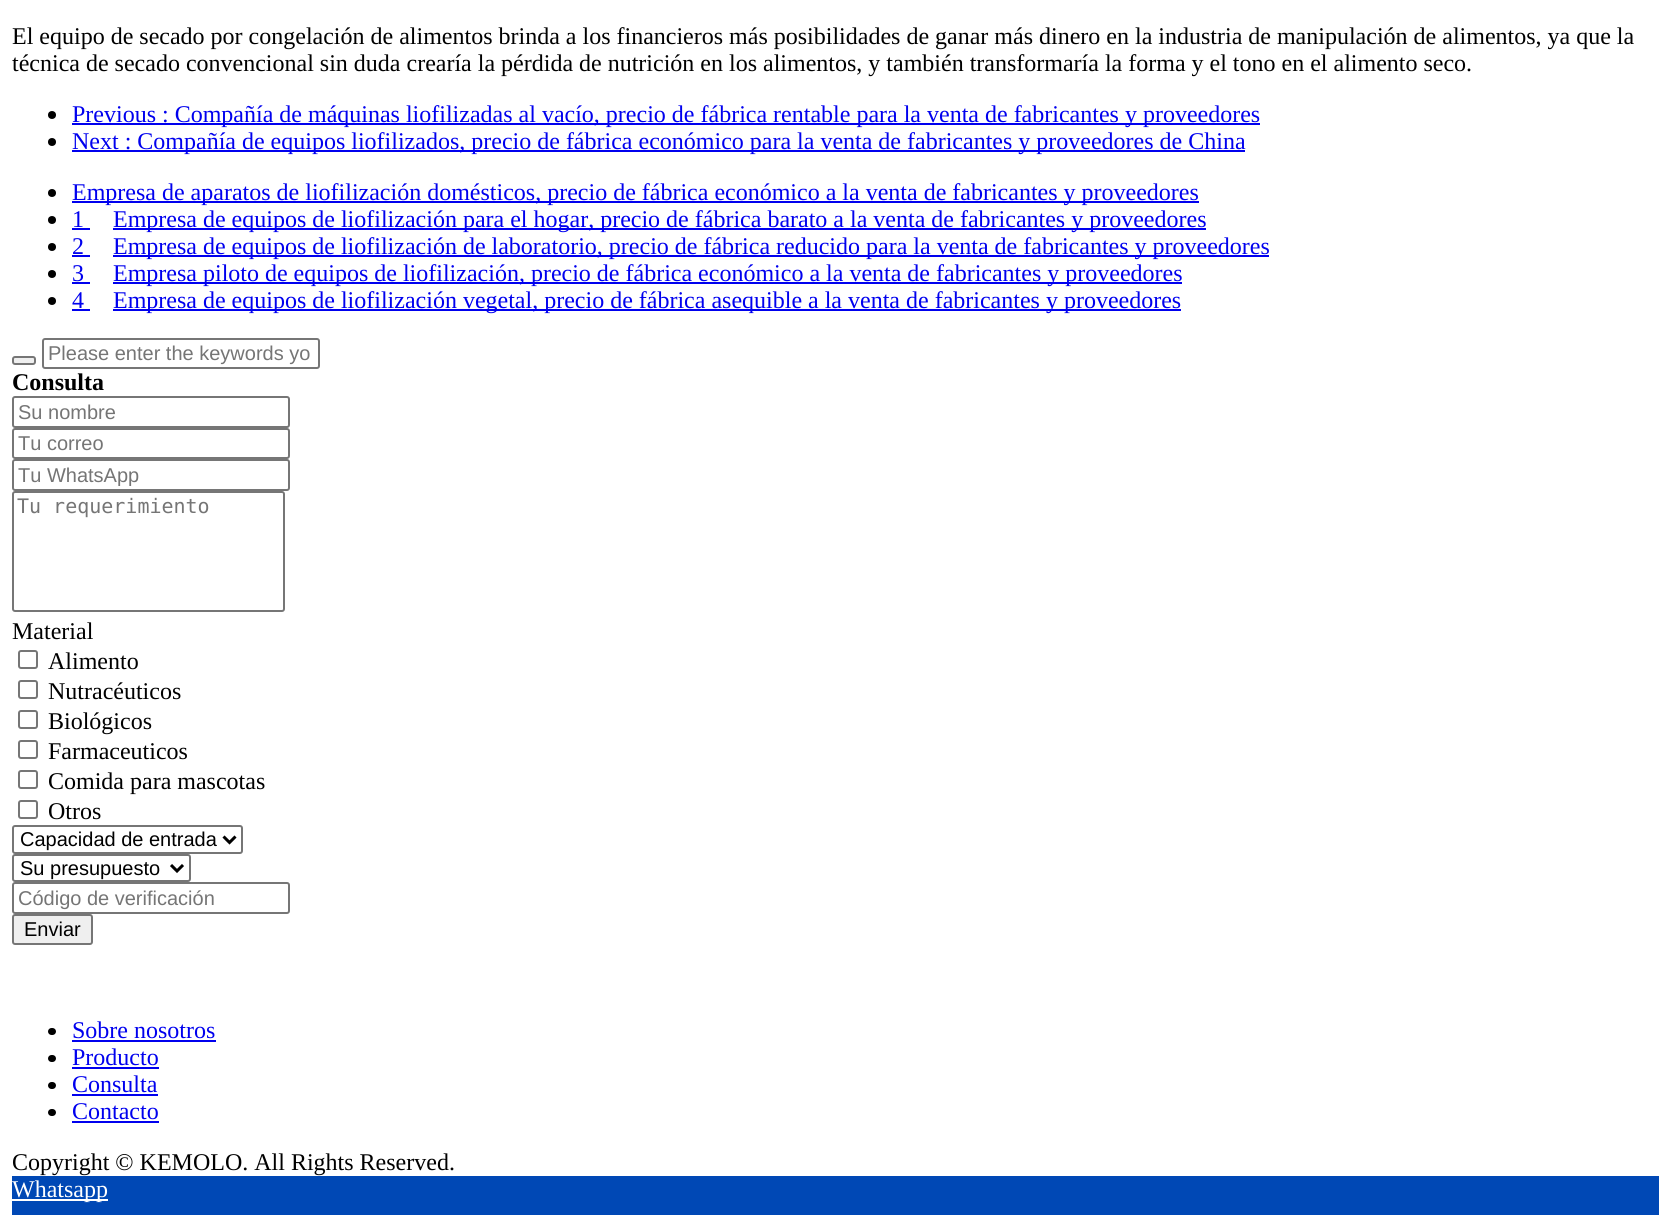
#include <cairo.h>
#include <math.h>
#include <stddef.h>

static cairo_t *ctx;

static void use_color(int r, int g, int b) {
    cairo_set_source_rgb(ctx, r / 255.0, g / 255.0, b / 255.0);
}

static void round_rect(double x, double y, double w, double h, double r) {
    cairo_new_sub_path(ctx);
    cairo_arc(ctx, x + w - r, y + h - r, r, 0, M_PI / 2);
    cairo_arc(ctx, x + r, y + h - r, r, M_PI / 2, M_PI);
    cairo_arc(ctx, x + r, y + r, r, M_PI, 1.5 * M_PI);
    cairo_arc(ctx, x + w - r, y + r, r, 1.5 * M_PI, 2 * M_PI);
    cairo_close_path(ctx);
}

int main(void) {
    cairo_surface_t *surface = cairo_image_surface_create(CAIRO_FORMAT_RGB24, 1670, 1215);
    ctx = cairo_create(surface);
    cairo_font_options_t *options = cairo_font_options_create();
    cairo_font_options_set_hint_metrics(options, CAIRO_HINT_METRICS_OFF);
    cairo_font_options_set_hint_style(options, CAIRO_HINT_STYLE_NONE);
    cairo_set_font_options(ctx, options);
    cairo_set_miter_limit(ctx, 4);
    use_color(255, 255, 255);
    cairo_paint(ctx);
    cairo_select_font_face(ctx, "Liberation Serif", CAIRO_FONT_SLANT_NORMAL, CAIRO_FONT_WEIGHT_NORMAL);
    cairo_set_font_size(ctx, 24);
    use_color(0, 0, 0);
    cairo_move_to(ctx, 12, 44);
    cairo_show_text(ctx, "El equipo de secado por congelación de alimentos brinda a los financieros más posibilidades de ganar más dinero en la industria de manipulación de alimentos, ya que la");
    cairo_move_to(ctx, 12, 71);
    cairo_show_text(ctx, "técnica de secado convencional sin duda crearía la pérdida de nutrición en los alimentos, y también transformaría la forma y el tono en el alimento seco.");
    cairo_new_path(ctx);
    cairo_arc(ctx, 52, 115, 4, 0, 2 * M_PI);
    cairo_fill(ctx);
    use_color(0, 0, 238);
    cairo_rectangle(ctx, 72, 123, 1188, 2);
    cairo_fill(ctx);
    cairo_move_to(ctx, 72, 122);
    cairo_show_text(ctx, "Previous : Compañía de máquinas liofilizadas al vacío, precio de fábrica rentable para la venta de fabricantes y proveedores");
    use_color(0, 0, 0);
    cairo_new_path(ctx);
    cairo_arc(ctx, 52, 142, 4, 0, 2 * M_PI);
    cairo_fill(ctx);
    use_color(0, 0, 238);
    cairo_rectangle(ctx, 72, 150, 1173, 2);
    cairo_fill(ctx);
    cairo_move_to(ctx, 72, 149);
    cairo_show_text(ctx, "Next : Compañía de equipos liofilizados, precio de fábrica económico para la venta de fabricantes y proveedores de China");
    use_color(0, 0, 0);
    cairo_new_path(ctx);
    cairo_arc(ctx, 52, 193, 4, 0, 2 * M_PI);
    cairo_fill(ctx);
    use_color(0, 0, 238);
    cairo_rectangle(ctx, 72, 201, 1127, 2);
    cairo_fill(ctx);
    cairo_move_to(ctx, 72, 200);
    cairo_show_text(ctx, "Empresa de aparatos de liofilización domésticos, precio de fábrica económico a la venta de fabricantes y proveedores");
    use_color(0, 0, 0);
    cairo_new_path(ctx);
    cairo_arc(ctx, 52, 220, 4, 0, 2 * M_PI);
    cairo_fill(ctx);
    use_color(0, 0, 238);
    cairo_move_to(ctx, 72, 227);
    cairo_show_text(ctx, "1");
    cairo_rectangle(ctx, 72, 228, 18, 2);
    cairo_fill(ctx);
    cairo_rectangle(ctx, 113, 228, 1093, 2);
    cairo_fill(ctx);
    cairo_move_to(ctx, 113, 227);
    cairo_show_text(ctx, "Empresa de equipos de liofilización para el hogar, precio de fábrica barato a la venta de fabricantes y proveedores");
    use_color(0, 0, 0);
    cairo_new_path(ctx);
    cairo_arc(ctx, 52, 247, 4, 0, 2 * M_PI);
    cairo_fill(ctx);
    use_color(0, 0, 238);
    cairo_move_to(ctx, 72, 254);
    cairo_show_text(ctx, "2");
    cairo_rectangle(ctx, 72, 255, 18, 2);
    cairo_fill(ctx);
    cairo_rectangle(ctx, 113, 255, 1156, 2);
    cairo_fill(ctx);
    cairo_move_to(ctx, 113, 254);
    cairo_show_text(ctx, "Empresa de equipos de liofilización de laboratorio, precio de fábrica reducido para la venta de fabricantes y proveedores");
    use_color(0, 0, 0);
    cairo_new_path(ctx);
    cairo_arc(ctx, 52, 274, 4, 0, 2 * M_PI);
    cairo_fill(ctx);
    use_color(0, 0, 238);
    cairo_move_to(ctx, 72, 281);
    cairo_show_text(ctx, "3");
    cairo_rectangle(ctx, 72, 282, 18, 2);
    cairo_fill(ctx);
    cairo_rectangle(ctx, 113, 282, 1069, 2);
    cairo_fill(ctx);
    cairo_move_to(ctx, 113, 281);
    cairo_show_text(ctx, "Empresa piloto de equipos de liofilización, precio de fábrica económico a la venta de fabricantes y proveedores");
    use_color(0, 0, 0);
    cairo_new_path(ctx);
    cairo_arc(ctx, 52, 301, 4, 0, 2 * M_PI);
    cairo_fill(ctx);
    use_color(0, 0, 238);
    cairo_move_to(ctx, 72, 308);
    cairo_show_text(ctx, "4");
    cairo_rectangle(ctx, 72, 309, 18, 2);
    cairo_fill(ctx);
    cairo_rectangle(ctx, 113, 309, 1068, 2);
    cairo_fill(ctx);
    cairo_move_to(ctx, 113, 308);
    cairo_show_text(ctx, "Empresa de equipos de liofilización vegetal, precio de fábrica asequible a la venta de fabricantes y proveedores");
    use_color(239, 239, 239);
    round_rect(13, 357, 22, 7, 2);
    cairo_fill_preserve(ctx);
    use_color(118, 118, 118);
    cairo_stroke(ctx);
    round_rect(43, 339, 276, 29, 2);
    cairo_stroke(ctx);
    cairo_select_font_face(ctx, "Liberation Sans", CAIRO_FONT_SLANT_NORMAL, CAIRO_FONT_WEIGHT_NORMAL);
    cairo_set_font_size(ctx, 20);
    use_color(117, 117, 117);
    cairo_move_to(ctx, 48, 360);
    cairo_show_text(ctx, "Please enter the keywords yo");
    cairo_select_font_face(ctx, "Liberation Serif", CAIRO_FONT_SLANT_NORMAL, CAIRO_FONT_WEIGHT_BOLD);
    cairo_set_font_size(ctx, 24);
    use_color(0, 0, 0);
    cairo_move_to(ctx, 12, 390);
    cairo_show_text(ctx, "Consulta");
    round_rect(13, 397, 276, 30, 2);
    use_color(118, 118, 118);
    cairo_stroke(ctx);
    cairo_select_font_face(ctx, "Liberation Sans", CAIRO_FONT_SLANT_NORMAL, CAIRO_FONT_WEIGHT_NORMAL);
    cairo_set_font_size(ctx, 20);
    use_color(117, 117, 117);
    cairo_move_to(ctx, 18, 419);
    cairo_show_text(ctx, "Su nombre");
    round_rect(13, 429, 276, 29, 2);
    use_color(118, 118, 118);
    cairo_stroke(ctx);
    use_color(117, 117, 117);
    cairo_move_to(ctx, 18, 450);
    cairo_show_text(ctx, "Tu correo");
    round_rect(13, 460, 276, 30, 2);
    use_color(118, 118, 118);
    cairo_stroke(ctx);
    cairo_save(ctx);
    cairo_rectangle(ctx, 18, 464, 266, 22);
    cairo_clip(ctx);
    use_color(117, 117, 117);
    cairo_move_to(ctx, 18, 482);
    cairo_show_text(ctx, "Tu WhatsApp");
    cairo_restore(ctx);
    round_rect(13, 492, 271, 119, 2);
    cairo_stroke(ctx);
    cairo_select_font_face(ctx, "DejaVu Sans Mono", CAIRO_FONT_SLANT_NORMAL, CAIRO_FONT_WEIGHT_NORMAL);
    use_color(117, 117, 117);
    cairo_move_to(ctx, 17, 513);
    cairo_show_text(ctx, "Tu requerimiento");
    cairo_select_font_face(ctx, "Liberation Serif", CAIRO_FONT_SLANT_NORMAL, CAIRO_FONT_WEIGHT_NORMAL);
    cairo_set_font_size(ctx, 24);
    use_color(0, 0, 0);
    cairo_move_to(ctx, 12, 639);
    cairo_show_text(ctx, "Material");
    round_rect(19, 651, 18, 17, 2);
    use_color(118, 118, 118);
    cairo_stroke(ctx);
    use_color(0, 0, 0);
    cairo_move_to(ctx, 48, 669);
    cairo_show_text(ctx, "Alimento");
    round_rect(19, 681, 18, 17, 2);
    use_color(118, 118, 118);
    cairo_stroke(ctx);
    use_color(0, 0, 0);
    cairo_move_to(ctx, 48, 699);
    cairo_show_text(ctx, "Nutracéuticos");
    round_rect(19, 711, 18, 17, 2);
    use_color(118, 118, 118);
    cairo_stroke(ctx);
    use_color(0, 0, 0);
    cairo_move_to(ctx, 48, 729);
    cairo_show_text(ctx, "Biológicos");
    round_rect(19, 741, 18, 17, 2);
    use_color(118, 118, 118);
    cairo_stroke(ctx);
    use_color(0, 0, 0);
    cairo_move_to(ctx, 48, 759);
    cairo_show_text(ctx, "Farmaceuticos");
    round_rect(19, 771, 18, 17, 2);
    use_color(118, 118, 118);
    cairo_stroke(ctx);
    use_color(0, 0, 0);
    cairo_move_to(ctx, 48, 789);
    cairo_show_text(ctx, "Comida para mascotas");
    round_rect(19, 801, 18, 17, 2);
    use_color(118, 118, 118);
    cairo_stroke(ctx);
    use_color(0, 0, 0);
    cairo_move_to(ctx, 48, 819);
    cairo_show_text(ctx, "Otros");
    round_rect(13, 826, 229, 27, 2);
    use_color(118, 118, 118);
    cairo_stroke(ctx);
    cairo_new_path(ctx);
    cairo_move_to(ctx, 223.5, 836.5);
    cairo_line_to(ctx, 229.5, 842.5);
    cairo_line_to(ctx, 235.5, 836.5);
    use_color(0, 0, 0);
    cairo_set_line_width(ctx, 3);
    cairo_stroke(ctx);
    cairo_select_font_face(ctx, "Liberation Sans", CAIRO_FONT_SLANT_NORMAL, CAIRO_FONT_WEIGHT_NORMAL);
    cairo_set_font_size(ctx, 20);
    cairo_move_to(ctx, 20, 846);
    cairo_show_text(ctx, "Capacidad de entrada");
    round_rect(13, 855, 177, 26, 2);
    use_color(118, 118, 118);
    cairo_set_line_width(ctx, 2);
    cairo_stroke(ctx);
    cairo_new_path(ctx);
    cairo_move_to(ctx, 171, 865);
    cairo_line_to(ctx, 177, 871);
    cairo_line_to(ctx, 183, 865);
    use_color(0, 0, 0);
    cairo_set_line_width(ctx, 3);
    cairo_stroke(ctx);
    cairo_move_to(ctx, 20, 875);
    cairo_show_text(ctx, "Su presupuesto");
    round_rect(13, 883, 276, 30, 2);
    use_color(118, 118, 118);
    cairo_set_line_width(ctx, 2);
    cairo_stroke(ctx);
    use_color(117, 117, 117);
    cairo_move_to(ctx, 18, 905);
    cairo_show_text(ctx, "Código de verificación");
    use_color(239, 239, 239);
    round_rect(13, 915, 79, 29, 2);
    cairo_fill_preserve(ctx);
    use_color(118, 118, 118);
    cairo_stroke(ctx);
    use_color(0, 0, 0);
    cairo_move_to(ctx, 24, 936);
    cairo_show_text(ctx, "Enviar");
    round_rect(48, 1028, 8, 7, 3.5);
    cairo_fill(ctx);
    cairo_select_font_face(ctx, "Liberation Serif", CAIRO_FONT_SLANT_NORMAL, CAIRO_FONT_WEIGHT_NORMAL);
    cairo_set_font_size(ctx, 24);
    use_color(0, 0, 238);
    cairo_move_to(ctx, 72, 1038);
    cairo_show_text(ctx, "Sobre nosotros");
    cairo_rectangle(ctx, 72, 1040, 144, 2);
    cairo_fill(ctx);
    use_color(0, 0, 0);
    round_rect(48, 1055, 8, 7, 3.5);
    cairo_fill(ctx);
    use_color(0, 0, 238);
    cairo_move_to(ctx, 72, 1065);
    cairo_show_text(ctx, "Producto");
    cairo_rectangle(ctx, 72, 1067, 87, 2);
    cairo_fill(ctx);
    use_color(0, 0, 0);
    round_rect(48, 1082, 8, 7, 3.5);
    cairo_fill(ctx);
    use_color(0, 0, 238);
    cairo_move_to(ctx, 72, 1092);
    cairo_show_text(ctx, "Consulta");
    cairo_rectangle(ctx, 72, 1094, 86, 2);
    cairo_fill(ctx);
    use_color(0, 0, 0);
    round_rect(48, 1109, 8, 7, 3.5);
    cairo_fill(ctx);
    use_color(0, 0, 238);
    cairo_move_to(ctx, 72, 1119);
    cairo_show_text(ctx, "Contacto");
    cairo_rectangle(ctx, 72, 1121, 87, 2);
    cairo_fill(ctx);
    use_color(0, 0, 0);
    cairo_move_to(ctx, 12, 1170);
    cairo_show_text(ctx, "Copyright © KEMOLO. All Rights Reserved.");
    use_color(0, 72, 181);
    cairo_rectangle(ctx, 12, 1176, 1647, 39);
    cairo_fill(ctx);
    use_color(255, 255, 255);
    cairo_rectangle(ctx, 12, 1199, 96, 2);
    cairo_fill(ctx);
    cairo_move_to(ctx, 12, 1197);
    cairo_show_text(ctx, "Whatsapp");
    cairo_surface_write_to_png(surface, "result.png");
    cairo_font_options_destroy(options);
    cairo_destroy(ctx);
    cairo_surface_destroy(surface);
    return 0;
}
